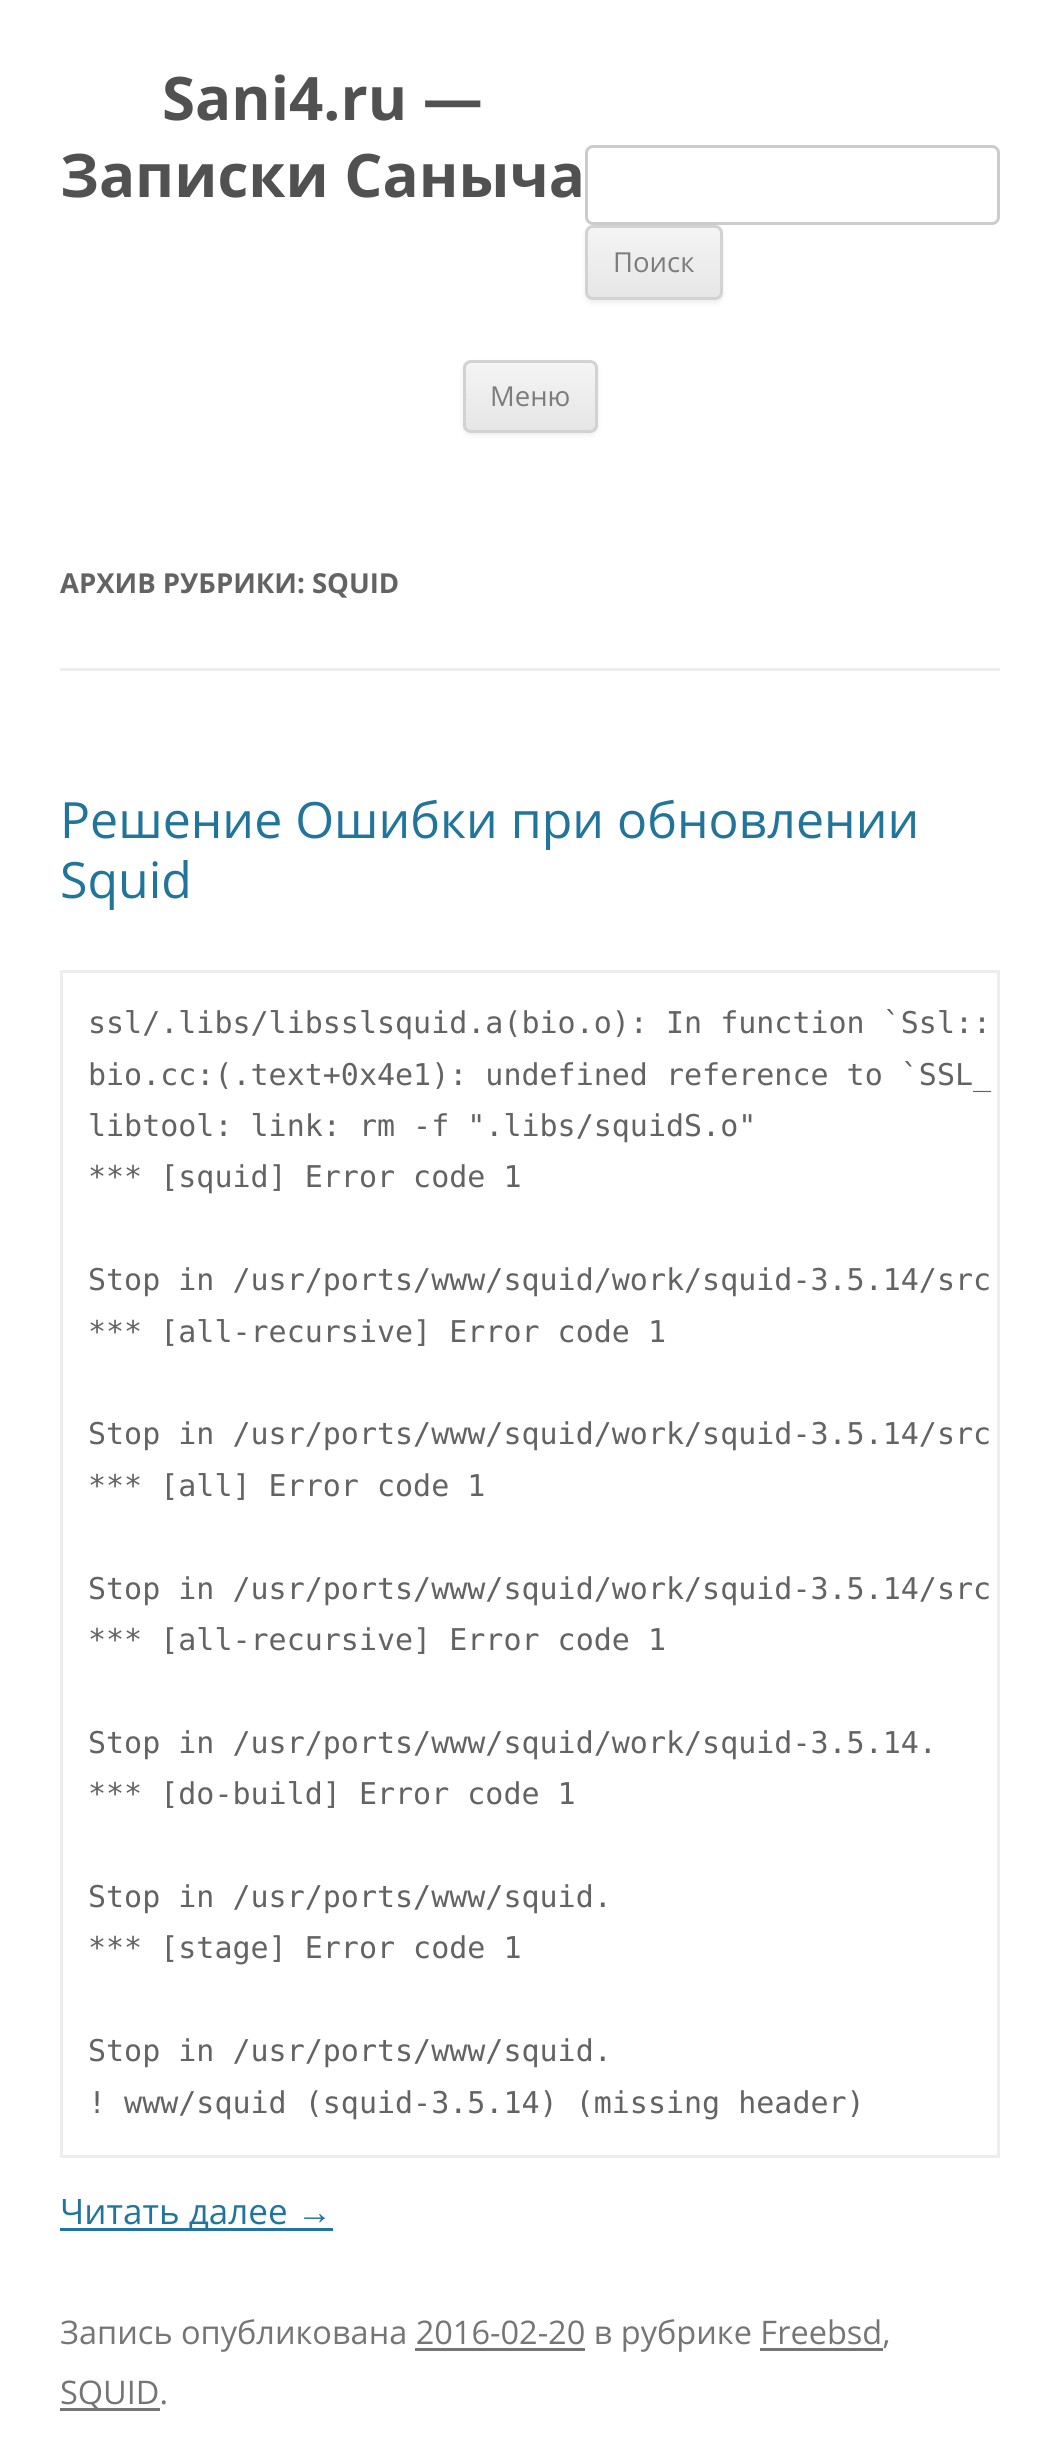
#include <cairo.h>
#include <math.h>
#include <stddef.h>

static cairo_t *ctx;

static void use_color(int r, int g, int b) {
    cairo_set_source_rgb(ctx, r / 255.0, g / 255.0, b / 255.0);
}

static void round_rect(double x, double y, double w, double h, double r) {
    cairo_new_sub_path(ctx);
    cairo_arc(ctx, x + w - r, y + h - r, r, 0, M_PI / 2);
    cairo_arc(ctx, x + r, y + h - r, r, M_PI / 2, M_PI);
    cairo_arc(ctx, x + r, y + r, r, M_PI, 1.5 * M_PI);
    cairo_arc(ctx, x + w - r, y + r, r, 1.5 * M_PI, 2 * M_PI);
    cairo_close_path(ctx);
}

static void shadow(double x, double y, double w, double h, double r, double blur, double alpha) {
    cairo_push_group_with_content(ctx, CAIRO_CONTENT_ALPHA);
    cairo_set_operator(ctx, CAIRO_OPERATOR_SOURCE);
    for (int i = 15; i >= -15 && fmin(w, h) + blur * i / 3 > 0; i -= 2) {
        double e = blur * i / 6;
        cairo_set_source_rgba(ctx, 0, 0, 0, alpha * erfc((i - 1) / 8.5) / 2);
        round_rect(x - e, y - e, w + 2 * e, h + 2 * e, fmax(0, fmin(r + e + blur * .6, fmin(w, h) / 2 + e)));
        cairo_fill(ctx);
    }
    cairo_pattern_t *soft = cairo_pop_group(ctx);
    cairo_mask(ctx, soft);
    cairo_pattern_destroy(soft);
}

int main(void) {
    cairo_surface_t *surface = cairo_image_surface_create(CAIRO_FORMAT_RGB24, 1058, 2439);
    ctx = cairo_create(surface);
    cairo_font_options_t *options = cairo_font_options_create();
    cairo_font_options_set_hint_metrics(options, CAIRO_HINT_METRICS_OFF);
    cairo_font_options_set_hint_style(options, CAIRO_HINT_STYLE_NONE);
    cairo_set_font_options(ctx, options);
    cairo_set_miter_limit(ctx, 4);
    cairo_pattern_t *gradient;
    use_color(255, 255, 255);
    cairo_paint(ctx);
    cairo_select_font_face(ctx, "Open Sans", CAIRO_FONT_SLANT_NORMAL, CAIRO_FONT_WEIGHT_BOLD);
    cairo_set_font_size(ctx, 60);
    use_color(81, 81, 81);
    cairo_move_to(ctx, 162, 120);
    cairo_show_text(ctx, "Sani4.ru —");
    cairo_move_to(ctx, 60, 197);
    cairo_show_text(ctx, "Записки Саныча");
    round_rect(586.5, 146.5, 412, 77, 6.5);
    use_color(204, 204, 204);
    cairo_set_line_width(ctx, 3);
    cairo_stroke(ctx);
    use_color(64, 64, 64);
    shadow(585, 228, 138, 75, 8, 2.5, 0.1);
    cairo_save(ctx);
    round_rect(585, 225, 138, 75, 8);
    cairo_clip(ctx);
    gradient = cairo_pattern_create_linear(654, 228, 654, 298);
    cairo_pattern_add_color_stop_rgba(gradient, 0, 0.957, 0.957, 0.957, 1);
    cairo_pattern_add_color_stop_rgba(gradient, 1, 0.902, 0.902, 0.902, 1);
    cairo_set_source(ctx, gradient);
    cairo_pattern_destroy(gradient);
    cairo_rectangle(ctx, 585, 228, 138, 70);
    cairo_fill(ctx);
    cairo_restore(ctx);
    round_rect(586.5, 226.5, 135, 72, 6.5);
    use_color(210, 210, 210);
    cairo_stroke(ctx);
    cairo_select_font_face(ctx, "Open Sans", CAIRO_FONT_SLANT_NORMAL, CAIRO_FONT_WEIGHT_NORMAL);
    cairo_set_font_size(ctx, 27.5);
    use_color(124, 124, 124);
    cairo_move_to(ctx, 613, 272);
    cairo_show_text(ctx, "Поиск");
    use_color(64, 64, 64);
    shadow(463, 363, 135, 72, 8, 2.5, 0.1);
    cairo_save(ctx);
    round_rect(463, 360, 135, 73, 8);
    cairo_clip(ctx);
    gradient = cairo_pattern_create_linear(530, 363, 530, 430);
    cairo_pattern_add_color_stop_rgba(gradient, 0, 0.957, 0.957, 0.957, 1);
    cairo_pattern_add_color_stop_rgba(gradient, 1, 0.902, 0.902, 0.902, 1);
    cairo_set_source(ctx, gradient);
    cairo_pattern_destroy(gradient);
    cairo_rectangle(ctx, 463, 363, 135, 67);
    cairo_fill(ctx);
    cairo_restore(ctx);
    round_rect(464.5, 361.5, 132, 70, 6.5);
    use_color(210, 210, 210);
    cairo_stroke(ctx);
    use_color(124, 124, 124);
    cairo_move_to(ctx, 490, 406);
    cairo_show_text(ctx, "Меню");
    use_color(237, 237, 237);
    cairo_rectangle(ctx, 60, 668, 940, 3);
    cairo_fill(ctx);
    cairo_select_font_face(ctx, "Open Sans", CAIRO_FONT_SLANT_NORMAL, CAIRO_FONT_WEIGHT_BOLD);
    use_color(99, 99, 99);
    cairo_move_to(ctx, 60, 593);
    cairo_show_text(ctx, "АРХИВ РУБРИКИ: SQUID");
    cairo_select_font_face(ctx, "Open Sans", CAIRO_FONT_SLANT_NORMAL, CAIRO_FONT_WEIGHT_NORMAL);
    cairo_set_font_size(ctx, 50);
    use_color(33, 117, 155);
    cairo_move_to(ctx, 60, 838);
    cairo_show_text(ctx, "Решение Ошибки при обновлении");
    cairo_move_to(ctx, 60, 898);
    cairo_show_text(ctx, "Squid");
    cairo_rectangle(ctx, 61.5, 971.5, 937, 1185);
    use_color(237, 237, 237);
    cairo_stroke(ctx);
    cairo_select_font_face(ctx, "DejaVu Sans Mono", CAIRO_FONT_SLANT_NORMAL, CAIRO_FONT_WEIGHT_NORMAL);
    cairo_set_font_size(ctx, 30);
    use_color(99, 99, 99);
    cairo_move_to(ctx, 88, 1033);
    cairo_show_text(ctx, "ssl/.libs/libsslsquid.a(bio.o): In function `Ssl::");
    cairo_move_to(ctx, 88, 1085);
    cairo_show_text(ctx, "bio.cc:(.text+0x4e1): undefined reference to `SSL_");
    cairo_move_to(ctx, 88, 1136);
    cairo_show_text(ctx, "libtool: link: rm -f \".libs/squidS.o\"");
    cairo_move_to(ctx, 88, 1187);
    cairo_show_text(ctx, "*** [squid] Error code 1");
    cairo_move_to(ctx, 88, 1290);
    cairo_show_text(ctx, "Stop in /usr/ports/www/squid/work/squid-3.5.14/src");
    cairo_move_to(ctx, 88, 1342);
    cairo_show_text(ctx, "*** [all-recursive] Error code 1");
    cairo_move_to(ctx, 88, 1444);
    cairo_show_text(ctx, "Stop in /usr/ports/www/squid/work/squid-3.5.14/src");
    cairo_move_to(ctx, 88, 1496);
    cairo_show_text(ctx, "*** [all] Error code 1");
    cairo_move_to(ctx, 88, 1599);
    cairo_show_text(ctx, "Stop in /usr/ports/www/squid/work/squid-3.5.14/src");
    cairo_move_to(ctx, 88, 1650);
    cairo_show_text(ctx, "*** [all-recursive] Error code 1");
    cairo_move_to(ctx, 88, 1753);
    cairo_show_text(ctx, "Stop in /usr/ports/www/squid/work/squid-3.5.14.");
    cairo_move_to(ctx, 88, 1804);
    cairo_show_text(ctx, "*** [do-build] Error code 1");
    cairo_move_to(ctx, 88, 1907);
    cairo_show_text(ctx, "Stop in /usr/ports/www/squid.");
    cairo_move_to(ctx, 88, 1958);
    cairo_show_text(ctx, "*** [stage] Error code 1");
    cairo_move_to(ctx, 88, 2061);
    cairo_show_text(ctx, "Stop in /usr/ports/www/squid.");
    cairo_move_to(ctx, 88, 2113);
    cairo_show_text(ctx, "! www/squid (squid-3.5.14) (missing header)");
    use_color(33, 117, 155);
    cairo_rectangle(ctx, 60, 2228, 273, 3);
    cairo_fill(ctx);
    cairo_select_font_face(ctx, "Open Sans", CAIRO_FONT_SLANT_NORMAL, CAIRO_FONT_WEIGHT_NORMAL);
    cairo_set_font_size(ctx, 35);
    cairo_move_to(ctx, 60, 2224);
    cairo_show_text(ctx, "Читать далее");
    cairo_select_font_face(ctx, "Liberation Sans", CAIRO_FONT_SLANT_NORMAL, CAIRO_FONT_WEIGHT_NORMAL);
    cairo_move_to(ctx, 297, 2224);
    cairo_show_text(ctx, "→");
    cairo_select_font_face(ctx, "Open Sans", CAIRO_FONT_SLANT_NORMAL, CAIRO_FONT_WEIGHT_NORMAL);
    cairo_set_font_size(ctx, 32.5);
    use_color(117, 117, 117);
    cairo_move_to(ctx, 60, 2344);
    cairo_show_text(ctx, "Запись опубликована 2016-02-20 в рубрике Freebsd,");
    cairo_rectangle(ctx, 415, 2348, 170, 3);
    cairo_fill(ctx);
    cairo_rectangle(ctx, 760, 2348, 123, 3);
    cairo_fill(ctx);
    cairo_rectangle(ctx, 60, 2408, 100, 3);
    cairo_fill(ctx);
    cairo_move_to(ctx, 60, 2404);
    cairo_show_text(ctx, "SQUID.");
    cairo_surface_write_to_png(surface, "result.png");
    cairo_font_options_destroy(options);
    cairo_destroy(ctx);
    cairo_surface_destroy(surface);
    return 0;
}
